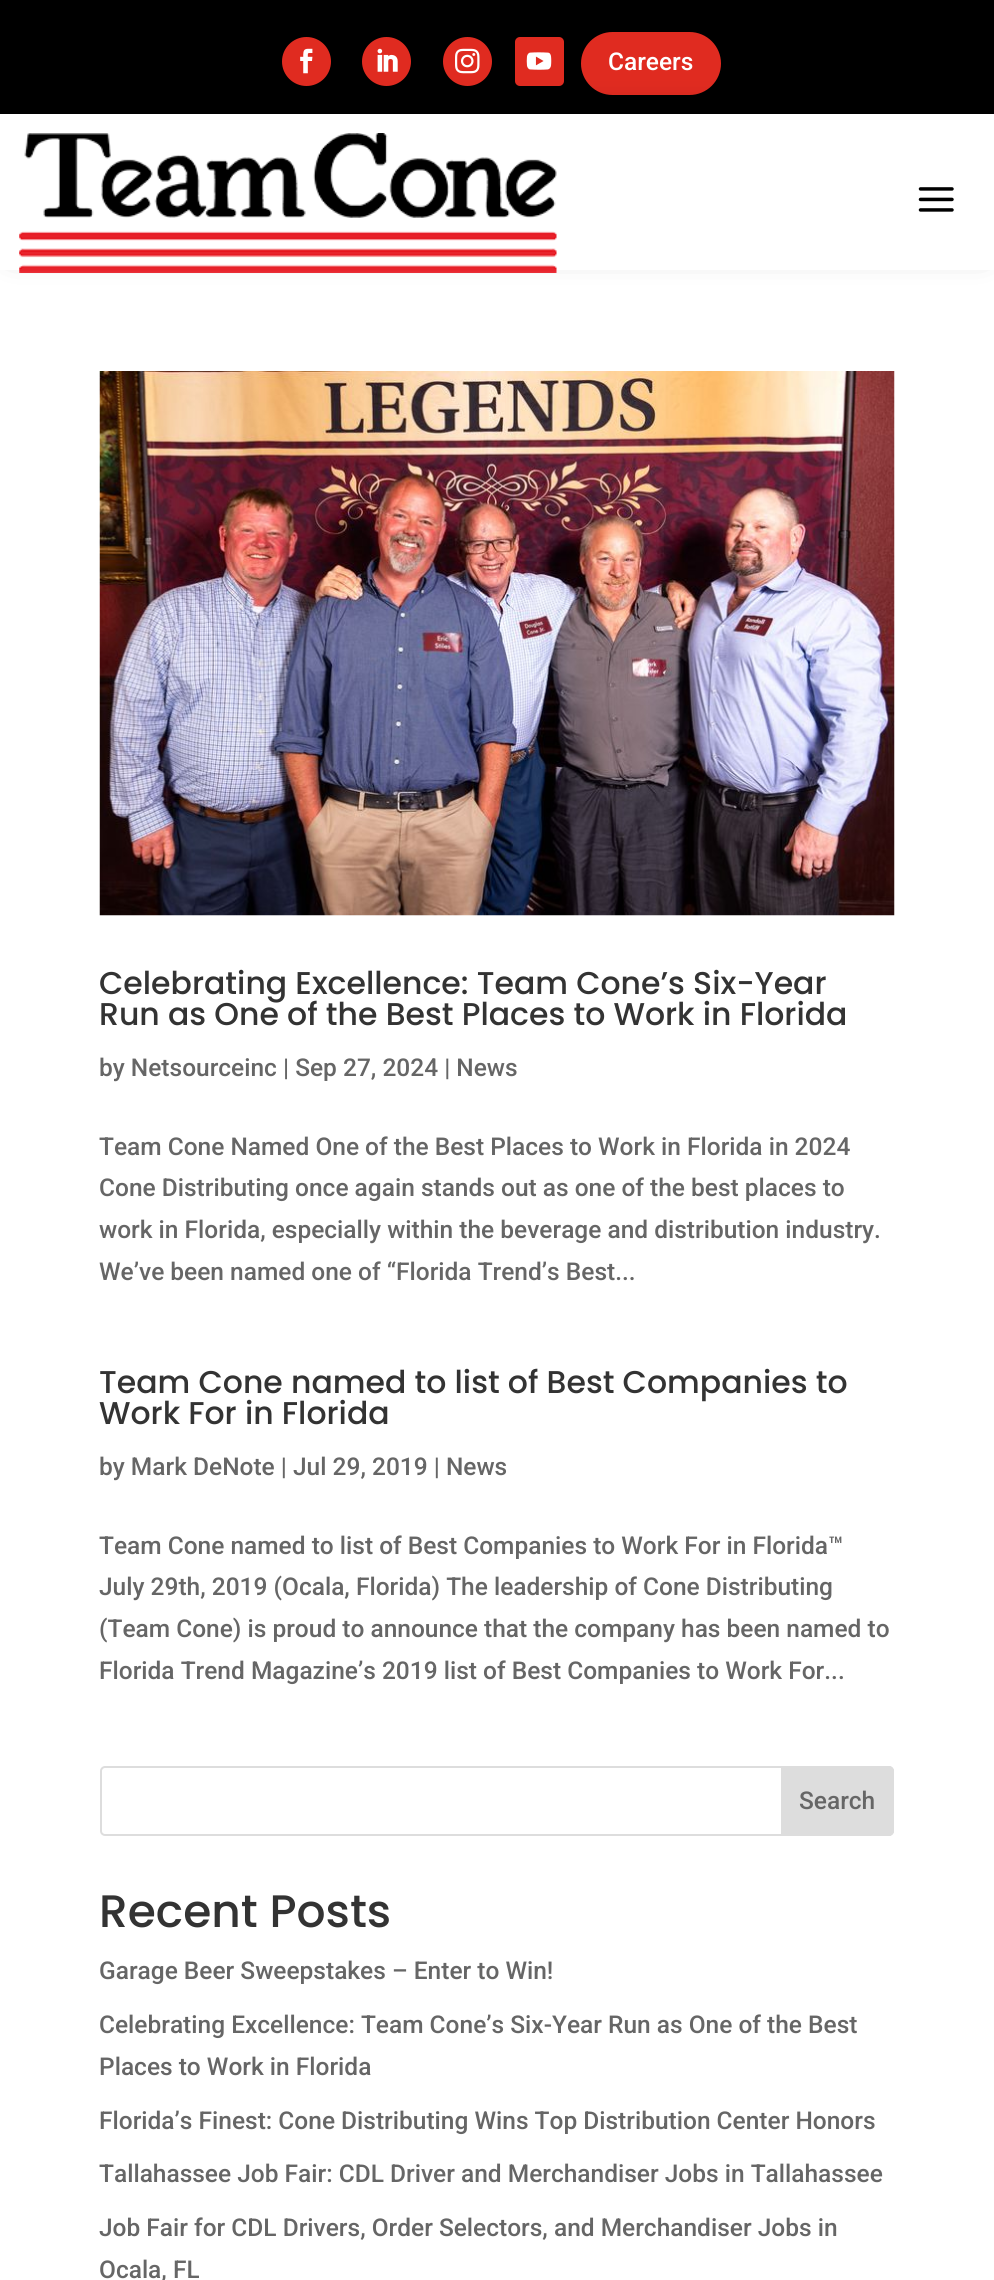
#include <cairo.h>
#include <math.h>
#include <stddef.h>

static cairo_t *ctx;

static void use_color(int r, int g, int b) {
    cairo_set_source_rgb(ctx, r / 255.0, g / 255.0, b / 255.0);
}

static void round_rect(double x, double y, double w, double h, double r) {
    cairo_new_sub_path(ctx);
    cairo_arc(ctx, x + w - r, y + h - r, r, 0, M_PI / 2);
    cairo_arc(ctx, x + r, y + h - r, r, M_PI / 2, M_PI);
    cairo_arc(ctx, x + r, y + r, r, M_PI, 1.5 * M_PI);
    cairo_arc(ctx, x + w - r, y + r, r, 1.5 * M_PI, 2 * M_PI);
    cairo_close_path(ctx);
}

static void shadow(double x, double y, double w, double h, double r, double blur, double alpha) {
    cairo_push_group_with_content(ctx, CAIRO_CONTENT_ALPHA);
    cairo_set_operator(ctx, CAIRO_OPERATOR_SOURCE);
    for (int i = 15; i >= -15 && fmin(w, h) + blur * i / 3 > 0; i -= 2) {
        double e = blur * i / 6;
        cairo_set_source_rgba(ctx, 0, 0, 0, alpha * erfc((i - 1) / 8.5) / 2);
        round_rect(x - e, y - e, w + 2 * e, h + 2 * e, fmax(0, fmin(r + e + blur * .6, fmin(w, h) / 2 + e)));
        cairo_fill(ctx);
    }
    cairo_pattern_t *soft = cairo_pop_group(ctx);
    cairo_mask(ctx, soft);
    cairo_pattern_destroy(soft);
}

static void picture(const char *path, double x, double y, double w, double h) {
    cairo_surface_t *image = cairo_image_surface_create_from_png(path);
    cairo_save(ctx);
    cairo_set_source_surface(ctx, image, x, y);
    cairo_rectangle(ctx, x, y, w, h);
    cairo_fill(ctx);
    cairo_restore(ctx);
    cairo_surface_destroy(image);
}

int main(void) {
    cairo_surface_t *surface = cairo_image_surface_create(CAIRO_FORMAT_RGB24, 994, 2280);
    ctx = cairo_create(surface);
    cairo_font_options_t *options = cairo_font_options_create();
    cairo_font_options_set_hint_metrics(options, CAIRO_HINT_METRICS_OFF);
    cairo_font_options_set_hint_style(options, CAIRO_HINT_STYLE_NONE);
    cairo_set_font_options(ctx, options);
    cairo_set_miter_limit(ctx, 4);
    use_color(255, 255, 255);
    cairo_paint(ctx);
    use_color(0, 0, 0);
    cairo_rectangle(ctx, 0, 0, 994, 114);
    cairo_fill(ctx);
    use_color(224, 43, 32);
    cairo_arc(ctx, 306.5, 61.5, 24.5, 0, 2 * M_PI);
    cairo_fill(ctx);
    picture("img1.png", 300, 48, 13, 26);
    cairo_arc(ctx, 386.5, 61.5, 24.5, 0, 2 * M_PI);
    cairo_fill(ctx);
    picture("img2.png", 377, 48, 21, 24);
    cairo_arc(ctx, 467.5, 61.5, 24.5, 0, 2 * M_PI);
    cairo_fill(ctx);
    picture("img3.png", 455, 48, 25, 26);
    round_rect(515, 37, 49, 49, 5);
    cairo_fill(ctx);
    picture("img4.png", 526, 52, 26, 18);
    round_rect(583, 34, 136, 59, 29.5);
    cairo_fill_preserve(ctx);
    cairo_set_line_width(ctx, 4);
    cairo_stroke(ctx);
    cairo_select_font_face(ctx, "Roboto Medium", CAIRO_FONT_SLANT_NORMAL, CAIRO_FONT_WEIGHT_NORMAL);
    cairo_set_font_size(ctx, 24.5);
    use_color(255, 255, 255);
    cairo_move_to(ctx, 608, 70);
    cairo_show_text(ctx, "Careers");
    use_color(0, 0, 0);
    shadow(11, 116, 973, 134, 0, 16, 0.3);
    use_color(255, 255, 255);
    cairo_rectangle(ctx, 0, 114, 994, 156);
    cairo_fill(ctx);
    picture("img5.png", 19, 133, 538, 140);
    picture("img6.png", 918, 187, 36, 25);
    picture("img7.png", 99, 371, 796, 545);
    cairo_select_font_face(ctx, "Poppins Medium", CAIRO_FONT_SLANT_NORMAL, CAIRO_FONT_WEIGHT_NORMAL);
    cairo_set_font_size(ctx, 31.5);
    use_color(51, 51, 51);
    cairo_move_to(ctx, 99, 994);
    cairo_show_text(ctx, "Celebrating Excellence: Team Cone’s Six-Year");
    cairo_move_to(ctx, 99, 1025);
    cairo_show_text(ctx, "Run as One of the Best Places to Work in Florida");
    cairo_select_font_face(ctx, "Roboto Medium", CAIRO_FONT_SLANT_NORMAL, CAIRO_FONT_WEIGHT_NORMAL);
    cairo_set_font_size(ctx, 24.5);
    use_color(102, 102, 102);
    cairo_move_to(ctx, 99, 1076);
    cairo_show_text(ctx, "by Netsourceinc | Sep 27, 2024 | News");
    cairo_move_to(ctx, 99, 1155);
    cairo_show_text(ctx, "Team Cone Named One of the Best Places to Work in Florida in 2024");
    cairo_move_to(ctx, 99, 1196);
    cairo_show_text(ctx, "Cone Distributing once again stands out as one of the best places to");
    cairo_move_to(ctx, 99, 1238);
    cairo_show_text(ctx, "work in Florida, especially within the beverage and distribution industry.");
    cairo_move_to(ctx, 99, 1280);
    cairo_show_text(ctx, "We’ve been named one of “Florida Trend’s Best...");
    cairo_select_font_face(ctx, "Poppins Medium", CAIRO_FONT_SLANT_NORMAL, CAIRO_FONT_WEIGHT_NORMAL);
    cairo_set_font_size(ctx, 31.5);
    use_color(51, 51, 51);
    cairo_move_to(ctx, 99, 1393);
    cairo_show_text(ctx, "Team Cone named to list of Best Companies to");
    cairo_move_to(ctx, 99, 1424);
    cairo_show_text(ctx, "Work For in Florida");
    cairo_select_font_face(ctx, "Roboto Medium", CAIRO_FONT_SLANT_NORMAL, CAIRO_FONT_WEIGHT_NORMAL);
    cairo_set_font_size(ctx, 24.5);
    use_color(102, 102, 102);
    cairo_move_to(ctx, 99, 1475);
    cairo_show_text(ctx, "by Mark DeNote | Jul 29, 2019 | News");
    cairo_move_to(ctx, 99, 1554);
    cairo_show_text(ctx, "Team Cone named to list of Best Companies to Work For in Florida™");
    cairo_move_to(ctx, 99, 1595);
    cairo_show_text(ctx, "July 29th, 2019 (Ocala, Florida) The leadership of Cone Distributing");
    cairo_move_to(ctx, 99, 1637);
    cairo_show_text(ctx, "(Team Cone) is proud to announce that the company has been named to");
    cairo_move_to(ctx, 99, 1679);
    cairo_show_text(ctx, "Florida Trend Magazine’s 2019 list of Best Companies to Work For...");
    round_rect(101, 1767, 792, 68, 4);
    use_color(221, 221, 221);
    cairo_set_line_width(ctx, 2);
    cairo_stroke(ctx);
    cairo_new_path(ctx);
    cairo_move_to(ctx, 782, 1767);
    cairo_line_to(ctx, 889, 1767);
    cairo_curve_to(ctx, 891, 1767, 893, 1769, 893, 1771);
    cairo_line_to(ctx, 893, 1831);
    cairo_curve_to(ctx, 893, 1833, 891, 1835, 889, 1835);
    cairo_line_to(ctx, 782, 1835);
    cairo_close_path(ctx);
    cairo_fill_preserve(ctx);
    cairo_stroke(ctx);
    use_color(102, 102, 102);
    cairo_move_to(ctx, 799, 1809);
    cairo_show_text(ctx, "Search");
    cairo_select_font_face(ctx, "Poppins Medium", CAIRO_FONT_SLANT_NORMAL, CAIRO_FONT_WEIGHT_NORMAL);
    cairo_set_font_size(ctx, 45.5);
    use_color(51, 51, 51);
    cairo_move_to(ctx, 99, 1927);
    cairo_show_text(ctx, "Recent Posts");
    cairo_select_font_face(ctx, "Roboto Medium", CAIRO_FONT_SLANT_NORMAL, CAIRO_FONT_WEIGHT_NORMAL);
    cairo_set_font_size(ctx, 24.5);
    use_color(102, 102, 102);
    cairo_move_to(ctx, 99, 1979);
    cairo_show_text(ctx, "Garage Beer Sweepstakes – Enter to Win!");
    cairo_move_to(ctx, 99, 2033);
    cairo_show_text(ctx, "Celebrating Excellence: Team Cone’s Six-Year Run as One of the Best");
    cairo_move_to(ctx, 99, 2075);
    cairo_show_text(ctx, "Places to Work in Florida");
    cairo_move_to(ctx, 99, 2129);
    cairo_show_text(ctx, "Florida’s Finest: Cone Distributing Wins Top Distribution Center Honors");
    cairo_move_to(ctx, 99, 2182);
    cairo_show_text(ctx, "Tallahassee Job Fair: CDL Driver and Merchandiser Jobs in Tallahassee");
    cairo_move_to(ctx, 99, 2236);
    cairo_show_text(ctx, "Job Fair for CDL Drivers, Order Selectors, and Merchandiser Jobs in");
    cairo_move_to(ctx, 99, 2278);
    cairo_show_text(ctx, "Ocala, FL");
    cairo_surface_write_to_png(surface, "result.png");
    cairo_font_options_destroy(options);
    cairo_destroy(ctx);
    cairo_surface_destroy(surface);
    return 0;
}
